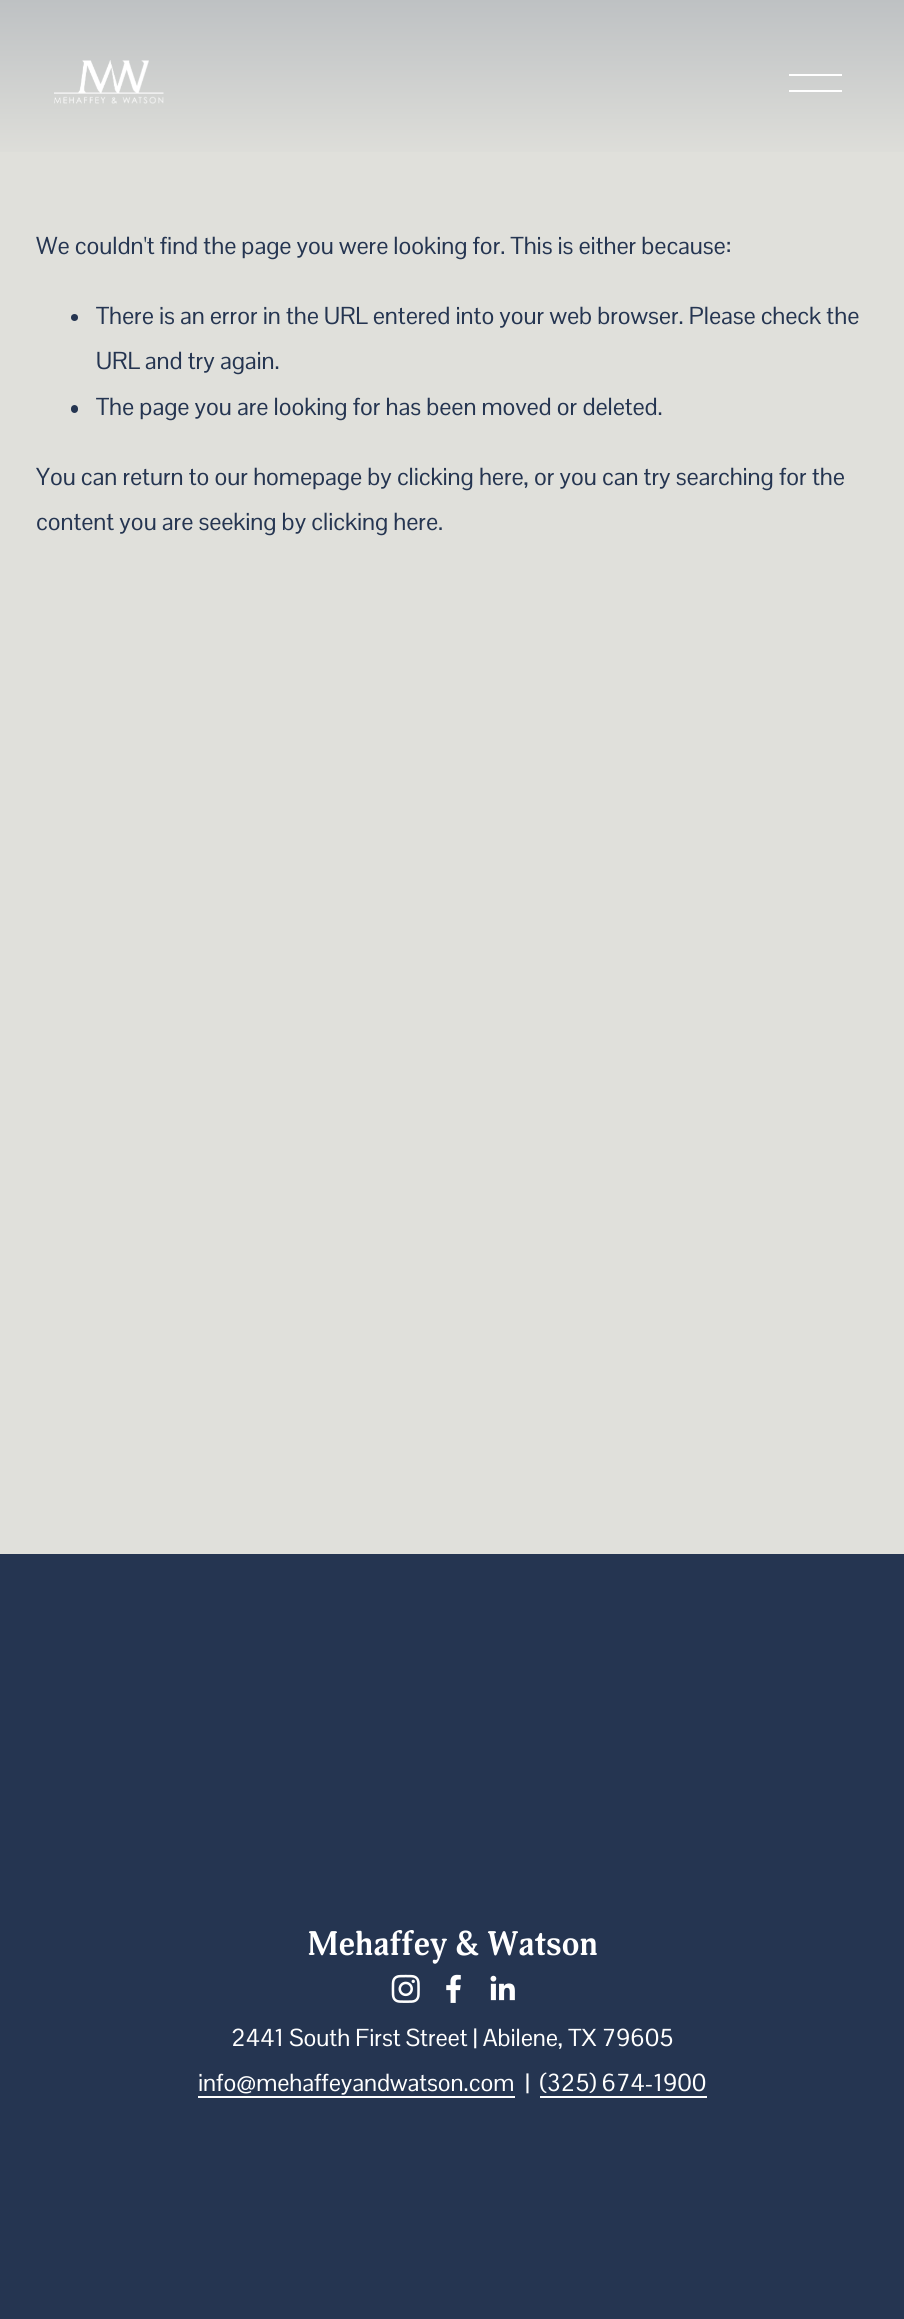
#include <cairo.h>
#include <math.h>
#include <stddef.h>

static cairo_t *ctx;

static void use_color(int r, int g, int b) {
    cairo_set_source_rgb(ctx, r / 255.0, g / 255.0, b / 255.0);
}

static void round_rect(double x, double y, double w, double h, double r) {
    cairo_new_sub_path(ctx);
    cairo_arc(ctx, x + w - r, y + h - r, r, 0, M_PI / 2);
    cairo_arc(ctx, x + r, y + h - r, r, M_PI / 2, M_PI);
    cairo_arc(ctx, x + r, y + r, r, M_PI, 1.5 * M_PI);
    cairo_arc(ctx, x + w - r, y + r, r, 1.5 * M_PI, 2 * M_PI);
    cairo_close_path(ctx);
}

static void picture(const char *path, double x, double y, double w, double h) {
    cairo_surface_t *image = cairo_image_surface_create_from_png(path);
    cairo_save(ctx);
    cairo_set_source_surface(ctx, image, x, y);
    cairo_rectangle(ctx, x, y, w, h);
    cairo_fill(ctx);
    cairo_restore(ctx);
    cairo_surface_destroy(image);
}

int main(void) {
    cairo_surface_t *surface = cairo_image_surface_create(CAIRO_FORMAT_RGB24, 904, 2319);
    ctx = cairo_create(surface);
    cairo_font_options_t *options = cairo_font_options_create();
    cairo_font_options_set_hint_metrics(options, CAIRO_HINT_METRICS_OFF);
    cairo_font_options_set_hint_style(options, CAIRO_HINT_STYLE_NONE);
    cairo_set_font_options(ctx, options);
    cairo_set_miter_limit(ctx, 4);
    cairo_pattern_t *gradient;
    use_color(224, 224, 219);
    cairo_paint(ctx);
    gradient = cairo_pattern_create_linear(452, 0, 452, 164);
    cairo_pattern_add_color_stop_rgba(gradient, 0, 0.745, 0.757, 0.765, 1);
    cairo_pattern_add_color_stop_rgba(gradient, 1, 0.878, 0.878, 0.859, 1);
    cairo_set_source(ctx, gradient);
    cairo_pattern_destroy(gradient);
    cairo_rectangle(ctx, 0, 0, 904, 152);
    cairo_fill(ctx);
    picture("img1.png", 54, 60, 110, 44);
    use_color(255, 255, 255);
    cairo_rectangle(ctx, 789, 74, 53, 2);
    cairo_fill(ctx);
    cairo_rectangle(ctx, 789, 90, 53, 2);
    cairo_fill(ctx);
    cairo_select_font_face(ctx, "Pontano Sans", CAIRO_FONT_SLANT_NORMAL, CAIRO_FONT_WEIGHT_NORMAL);
    cairo_set_font_size(ctx, 24);
    use_color(37, 53, 81);
    cairo_move_to(ctx, 36, 254);
    cairo_show_text(ctx, "We couldn't find the page you were looking for. This is either because:");
    cairo_new_path(ctx);
    cairo_arc(ctx, 74.5, 317.5, 3.5, 0, 2 * M_PI);
    cairo_fill(ctx);
    cairo_move_to(ctx, 96, 324);
    cairo_show_text(ctx, "There is an error in the URL entered into your web browser. Please check the");
    cairo_move_to(ctx, 96, 369);
    cairo_show_text(ctx, "URL and try again.");
    round_rect(71, 405, 7, 8, 3.5);
    cairo_fill(ctx);
    cairo_move_to(ctx, 96, 415);
    cairo_show_text(ctx, "The page you are looking for has been moved or deleted.");
    cairo_move_to(ctx, 36, 485);
    cairo_show_text(ctx, "You can return to our homepage by clicking here, or you can try searching for the");
    cairo_move_to(ctx, 36, 530);
    cairo_show_text(ctx, "content you are seeking by clicking here.");
    cairo_rectangle(ctx, 0, 1554, 904, 765);
    cairo_fill(ctx);
    cairo_select_font_face(ctx, "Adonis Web", CAIRO_FONT_SLANT_NORMAL, CAIRO_FONT_WEIGHT_BOLD);
    cairo_set_font_size(ctx, 33.75);
    use_color(255, 255, 255);
    cairo_move_to(ctx, 307, 1955);
    cairo_show_text(ctx, "Mehaffey & Watson");
    cairo_select_font_face(ctx, "Pontano Sans", CAIRO_FONT_SLANT_NORMAL, CAIRO_FONT_WEIGHT_NORMAL);
    cairo_set_font_size(ctx, 24);
    cairo_move_to(ctx, 231, 2046);
    cairo_show_text(ctx, "2441 South First Street | Abilene, TX 79605");
    cairo_move_to(ctx, 198, 2091);
    cairo_show_text(ctx, "info@mehaffeyandwatson.com");
    cairo_rectangle(ctx, 198, 2096, 317, 2);
    cairo_fill(ctx);
    cairo_move_to(ctx, 525, 2091);
    cairo_show_text(ctx, "|");
    cairo_move_to(ctx, 540, 2091);
    cairo_show_text(ctx, "(325) 674-1900");
    cairo_rectangle(ctx, 540, 2096, 167, 2);
    cairo_fill(ctx);
    picture("img2.png", 391, 1974, 29, 29);
    picture("img3.png", 446, 1974, 15, 29);
    picture("img4.png", 490, 1975, 25, 26);
    cairo_surface_write_to_png(surface, "result.png");
    cairo_font_options_destroy(options);
    cairo_destroy(ctx);
    cairo_surface_destroy(surface);
    return 0;
}
